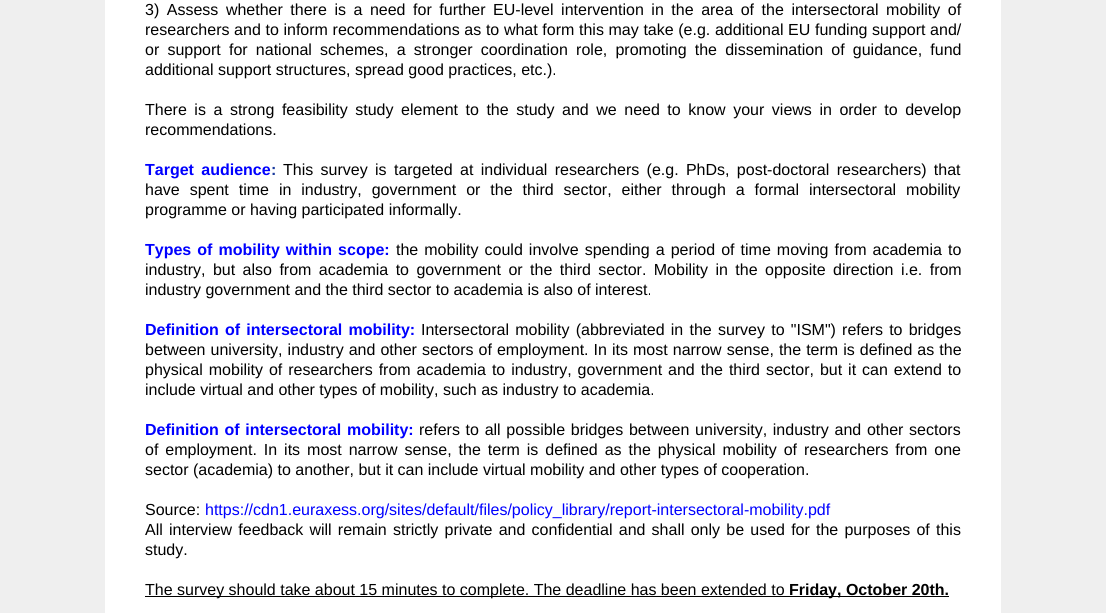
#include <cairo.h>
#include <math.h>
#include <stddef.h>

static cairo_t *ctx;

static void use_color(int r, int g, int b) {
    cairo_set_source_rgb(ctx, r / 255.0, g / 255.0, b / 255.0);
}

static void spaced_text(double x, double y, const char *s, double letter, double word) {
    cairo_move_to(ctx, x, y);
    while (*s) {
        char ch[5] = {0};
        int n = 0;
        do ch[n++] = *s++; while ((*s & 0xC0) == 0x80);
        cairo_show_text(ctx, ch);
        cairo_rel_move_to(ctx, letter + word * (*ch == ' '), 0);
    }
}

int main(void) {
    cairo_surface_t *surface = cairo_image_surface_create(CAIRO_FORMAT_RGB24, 1106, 613);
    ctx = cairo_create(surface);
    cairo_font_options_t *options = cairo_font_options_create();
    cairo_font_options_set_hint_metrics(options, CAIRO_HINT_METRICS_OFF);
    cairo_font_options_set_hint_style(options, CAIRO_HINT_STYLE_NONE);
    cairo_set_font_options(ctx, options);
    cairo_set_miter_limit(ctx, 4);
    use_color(239, 239, 239);
    cairo_paint(ctx);
    use_color(255, 255, 255);
    cairo_rectangle(ctx, 105, 0, 896, 613);
    cairo_fill(ctx);
    cairo_select_font_face(ctx, "Liberation Sans", CAIRO_FONT_SLANT_NORMAL, CAIRO_FONT_WEIGHT_NORMAL);
    cairo_set_font_size(ctx, 16);
    use_color(0, 0, 0);
    spaced_text(145, 15, "3) Assess whether there is a need for further EU-level intervention in the area of the intersectoral mobility of", 0, 3.1);
    spaced_text(145, 35, "researchers and to inform recommendations as to what form this may take (e.g. additional EU funding support and/", 0, 0.2);
    spaced_text(145, 55, "or support for national schemes, a stronger coordination role, promoting the dissemination of guidance, fund", 0, 3.75);
    cairo_move_to(ctx, 145, 75);
    cairo_show_text(ctx, "additional support structures, spread good practices, etc.).");
    spaced_text(145, 115, "There is a strong feasibility study element to the study and we need to know your views in order to develop", 0, 3.1);
    cairo_move_to(ctx, 145, 135);
    cairo_show_text(ctx, "recommendations.");
    cairo_select_font_face(ctx, "Liberation Sans", CAIRO_FONT_SLANT_NORMAL, CAIRO_FONT_WEIGHT_BOLD);
    use_color(0, 0, 255);
    spaced_text(145, 175, "Target audience", 0, 2.9);
    use_color(25, 58, 156);
    cairo_move_to(ctx, 271, 175);
    cairo_show_text(ctx, ":");
    cairo_select_font_face(ctx, "Liberation Sans", CAIRO_FONT_SLANT_NORMAL, CAIRO_FONT_WEIGHT_NORMAL);
    use_color(0, 0, 0);
    spaced_text(283, 175, "This survey is targeted at individual researchers (e.g. PhDs, post-doctoral researchers) that", 0, 2.9);
    spaced_text(145, 195, "have spent time in industry, government or the third sector, either through a formal intersectoral mobility", 0, 5.5);
    cairo_move_to(ctx, 145, 215);
    cairo_show_text(ctx, "programme or having participated informally.");
    cairo_select_font_face(ctx, "Liberation Sans", CAIRO_FONT_SLANT_NORMAL, CAIRO_FONT_WEIGHT_BOLD);
    use_color(0, 0, 255);
    spaced_text(145, 255, "Types of mobility within scope:", 0, 1.6);
    cairo_select_font_face(ctx, "Liberation Sans", CAIRO_FONT_SLANT_NORMAL, CAIRO_FONT_WEIGHT_NORMAL);
    use_color(0, 0, 0);
    spaced_text(396, 255, "the mobility could involve spending a period of time moving from academia to", 0, 1.6);
    spaced_text(145, 275, "industry, but also from academia to government or the third sector. Mobility in the opposite direction i.e. from", 0, 3);
    cairo_move_to(ctx, 145, 295);
    cairo_show_text(ctx, "industry government and the third sector to academia is also of interest.");
    cairo_select_font_face(ctx, "Liberation Sans", CAIRO_FONT_SLANT_NORMAL, CAIRO_FONT_WEIGHT_BOLD);
    use_color(0, 0, 255);
    spaced_text(145, 335, "Definition of intersectoral mobility:", 0, 1.75);
    cairo_select_font_face(ctx, "Liberation Sans", CAIRO_FONT_SLANT_NORMAL, CAIRO_FONT_WEIGHT_NORMAL);
    use_color(0, 0, 0);
    spaced_text(421, 335, "Intersectoral mobility (abbreviated in the survey to \"ISM\") refers to bridges", 0, 1.75);
    spaced_text(145, 355, "between university, industry and other sectors of employment. In its most narrow sense, the term is defined as the", 0, 0.6);
    spaced_text(145, 375, "physical mobility of researchers from academia to industry, government and the third sector, but it can extend to", 0, 1.5);
    cairo_move_to(ctx, 145, 395);
    cairo_show_text(ctx, "include virtual and other types of mobility, such as industry to academia.");
    cairo_select_font_face(ctx, "Liberation Sans", CAIRO_FONT_SLANT_NORMAL, CAIRO_FONT_WEIGHT_BOLD);
    use_color(0, 0, 255);
    spaced_text(145, 435, "Definition of intersectoral mobility:", 0, 1.25);
    cairo_select_font_face(ctx, "Liberation Sans", CAIRO_FONT_SLANT_NORMAL, CAIRO_FONT_WEIGHT_NORMAL);
    use_color(0, 0, 0);
    spaced_text(419, 435, "refers to all possible bridges between university, industry and other sectors", 0, 1.25);
    spaced_text(145, 455, "of employment. In its most narrow sense, the term is defined as the physical mobility of researchers from one", 0, 2.5);
    cairo_move_to(ctx, 145, 475);
    cairo_show_text(ctx, "sector (academia) to another, but it can include virtual mobility and other types of cooperation.");
    cairo_move_to(ctx, 145, 515);
    cairo_show_text(ctx, "Source:");
    use_color(0, 0, 255);
    cairo_move_to(ctx, 205, 515);
    cairo_show_text(ctx, "https://cdn1.euraxess.org/sites/default/files/policy_library/report-intersectoral-mobility.pdf");
    use_color(0, 0, 0);
    spaced_text(145, 535, "All interview feedback will remain strictly private and confidential and shall only be used for the purposes of this", 0, 1.75);
    cairo_move_to(ctx, 145, 555);
    cairo_show_text(ctx, "study.");
    cairo_rectangle(ctx, 145, 596, 804, 1);
    cairo_fill(ctx);
    cairo_move_to(ctx, 145, 595);
    cairo_show_text(ctx, "The survey should take about 15 minutes to complete. The deadline has been extended to");
    cairo_select_font_face(ctx, "Liberation Sans", CAIRO_FONT_SLANT_NORMAL, CAIRO_FONT_WEIGHT_BOLD);
    cairo_move_to(ctx, 789, 595);
    cairo_show_text(ctx, "Friday, October 20th.");
    cairo_surface_write_to_png(surface, "result.png");
    cairo_font_options_destroy(options);
    cairo_destroy(ctx);
    cairo_surface_destroy(surface);
    return 0;
}
